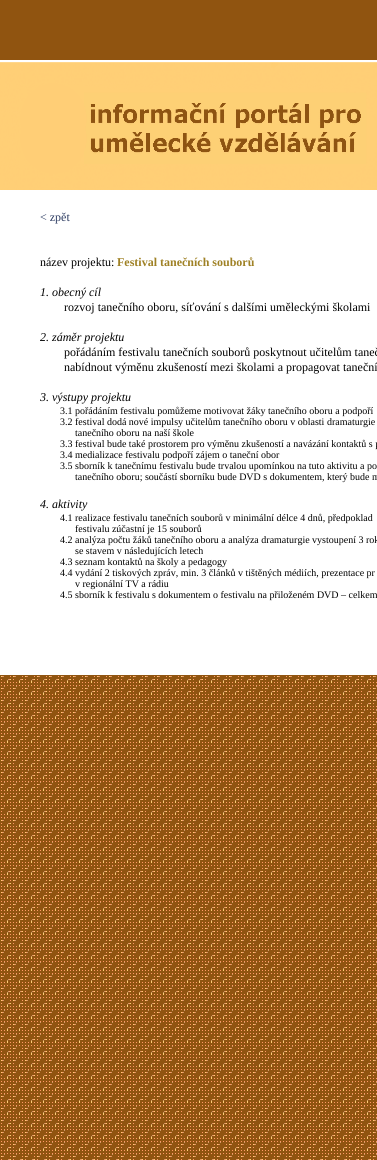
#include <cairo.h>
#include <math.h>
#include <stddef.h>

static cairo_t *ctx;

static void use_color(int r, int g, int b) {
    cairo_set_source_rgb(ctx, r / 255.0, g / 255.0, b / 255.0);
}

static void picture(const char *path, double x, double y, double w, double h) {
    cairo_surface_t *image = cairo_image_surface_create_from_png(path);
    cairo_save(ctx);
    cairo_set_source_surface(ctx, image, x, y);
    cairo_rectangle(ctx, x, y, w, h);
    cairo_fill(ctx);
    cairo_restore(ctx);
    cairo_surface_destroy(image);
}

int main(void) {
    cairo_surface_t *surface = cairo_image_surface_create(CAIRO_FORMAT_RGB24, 377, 1160);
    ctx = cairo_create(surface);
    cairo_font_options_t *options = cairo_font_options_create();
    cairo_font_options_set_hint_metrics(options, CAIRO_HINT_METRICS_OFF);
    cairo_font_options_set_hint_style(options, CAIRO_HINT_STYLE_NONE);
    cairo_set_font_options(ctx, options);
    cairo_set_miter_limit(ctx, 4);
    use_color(255, 255, 255);
    cairo_paint(ctx);
    picture("img1.png", 0, 0, 377, 1160);
    picture("img2.png", 0, 1, 377, 674);
    picture("img3.png", 0, 60, 377, 130);
    cairo_select_font_face(ctx, "Liberation Serif", CAIRO_FONT_SLANT_NORMAL, CAIRO_FONT_WEIGHT_NORMAL);
    cairo_set_font_size(ctx, 12);
    use_color(44, 59, 97);
    cairo_move_to(ctx, 40, 221);
    cairo_show_text(ctx, "< zpět");
    use_color(0, 0, 0);
    cairo_move_to(ctx, 40, 266);
    cairo_show_text(ctx, "název projektu:");
    cairo_select_font_face(ctx, "Liberation Serif", CAIRO_FONT_SLANT_NORMAL, CAIRO_FONT_WEIGHT_BOLD);
    use_color(159, 129, 37);
    cairo_move_to(ctx, 117, 266);
    cairo_show_text(ctx, "Festival tanečních souborů");
    cairo_select_font_face(ctx, "Liberation Serif", CAIRO_FONT_SLANT_ITALIC, CAIRO_FONT_WEIGHT_NORMAL);
    use_color(0, 0, 0);
    cairo_move_to(ctx, 40, 296);
    cairo_show_text(ctx, "1. obecný cíl");
    cairo_select_font_face(ctx, "Liberation Serif", CAIRO_FONT_SLANT_NORMAL, CAIRO_FONT_WEIGHT_NORMAL);
    cairo_move_to(ctx, 64, 311);
    cairo_show_text(ctx, "rozvoj tanečního oboru, síťování s dalšími uměleckými školami");
    cairo_select_font_face(ctx, "Liberation Serif", CAIRO_FONT_SLANT_ITALIC, CAIRO_FONT_WEIGHT_NORMAL);
    cairo_move_to(ctx, 40, 341);
    cairo_show_text(ctx, "2. záměr projektu");
    cairo_select_font_face(ctx, "Liberation Serif", CAIRO_FONT_SLANT_NORMAL, CAIRO_FONT_WEIGHT_NORMAL);
    cairo_move_to(ctx, 64, 356);
    cairo_show_text(ctx, "pořádáním festivalu tanečních souborů poskytnout učitelům taneč");
    cairo_move_to(ctx, 64, 371);
    cairo_show_text(ctx, "nabídnout výměnu zkušeností mezi školami a propagovat taneční");
    cairo_select_font_face(ctx, "Liberation Serif", CAIRO_FONT_SLANT_ITALIC, CAIRO_FONT_WEIGHT_NORMAL);
    cairo_move_to(ctx, 40, 401);
    cairo_show_text(ctx, "3. výstupy projektu");
    cairo_select_font_face(ctx, "Liberation Serif", CAIRO_FONT_SLANT_NORMAL, CAIRO_FONT_WEIGHT_NORMAL);
    cairo_set_font_size(ctx, 10);
    cairo_move_to(ctx, 60, 414);
    cairo_show_text(ctx, "3.1 pořádáním festivalu pomůžeme motivovat žáky tanečního oboru a podpoří");
    cairo_move_to(ctx, 60, 425);
    cairo_show_text(ctx, "3.2 festival dodá nové impulsy učitelům tanečního oboru v oblasti dramaturgie");
    cairo_move_to(ctx, 75, 436);
    cairo_show_text(ctx, "tanečního oboru na naší škole");
    cairo_move_to(ctx, 60, 447);
    cairo_show_text(ctx, "3.3 festival bude také prostorem pro výměnu zkušeností a navázání kontaktů s p");
    cairo_move_to(ctx, 60, 458);
    cairo_show_text(ctx, "3.4 medializace festivalu podpoří zájem o taneční obor");
    cairo_move_to(ctx, 60, 469);
    cairo_show_text(ctx, "3.5 sborník k tanečnímu festivalu bude trvalou upomínkou na tuto aktivitu a po");
    cairo_move_to(ctx, 75, 480);
    cairo_show_text(ctx, "tanečního oboru; součástí sborníku bude DVD s dokumentem, který bude m");
    cairo_select_font_face(ctx, "Liberation Serif", CAIRO_FONT_SLANT_ITALIC, CAIRO_FONT_WEIGHT_NORMAL);
    cairo_set_font_size(ctx, 12);
    cairo_move_to(ctx, 40, 508);
    cairo_show_text(ctx, "4. aktivity");
    cairo_select_font_face(ctx, "Liberation Serif", CAIRO_FONT_SLANT_NORMAL, CAIRO_FONT_WEIGHT_NORMAL);
    cairo_set_font_size(ctx, 10);
    cairo_move_to(ctx, 60, 521);
    cairo_show_text(ctx, "4.1 realizace festivalu tanečních souborů v minimální délce 4 dnů, předpoklad");
    cairo_move_to(ctx, 75, 532);
    cairo_show_text(ctx, "festivalu zúčastní je 15 souborů");
    cairo_move_to(ctx, 60, 543);
    cairo_show_text(ctx, "4.2 analýza počtu žáků tanečního oboru a analýza dramaturgie vystoupení 3 rok");
    cairo_move_to(ctx, 75, 554);
    cairo_show_text(ctx, "se stavem v následujících letech");
    cairo_move_to(ctx, 60, 565);
    cairo_show_text(ctx, "4.3 seznam kontaktů na školy a pedagogy");
    cairo_move_to(ctx, 60, 576);
    cairo_show_text(ctx, "4.4 vydání 2 tiskových zpráv, min. 3 článků v tištěných médiích, prezentace pr");
    cairo_move_to(ctx, 75, 587);
    cairo_show_text(ctx, "v regionální TV a rádiu");
    cairo_move_to(ctx, 60, 598);
    cairo_show_text(ctx, "4.5 sborník k festivalu s dokumentem o festivalu na přiloženém DVD – celkem");
    cairo_surface_write_to_png(surface, "result.png");
    cairo_font_options_destroy(options);
    cairo_destroy(ctx);
    cairo_surface_destroy(surface);
    return 0;
}
